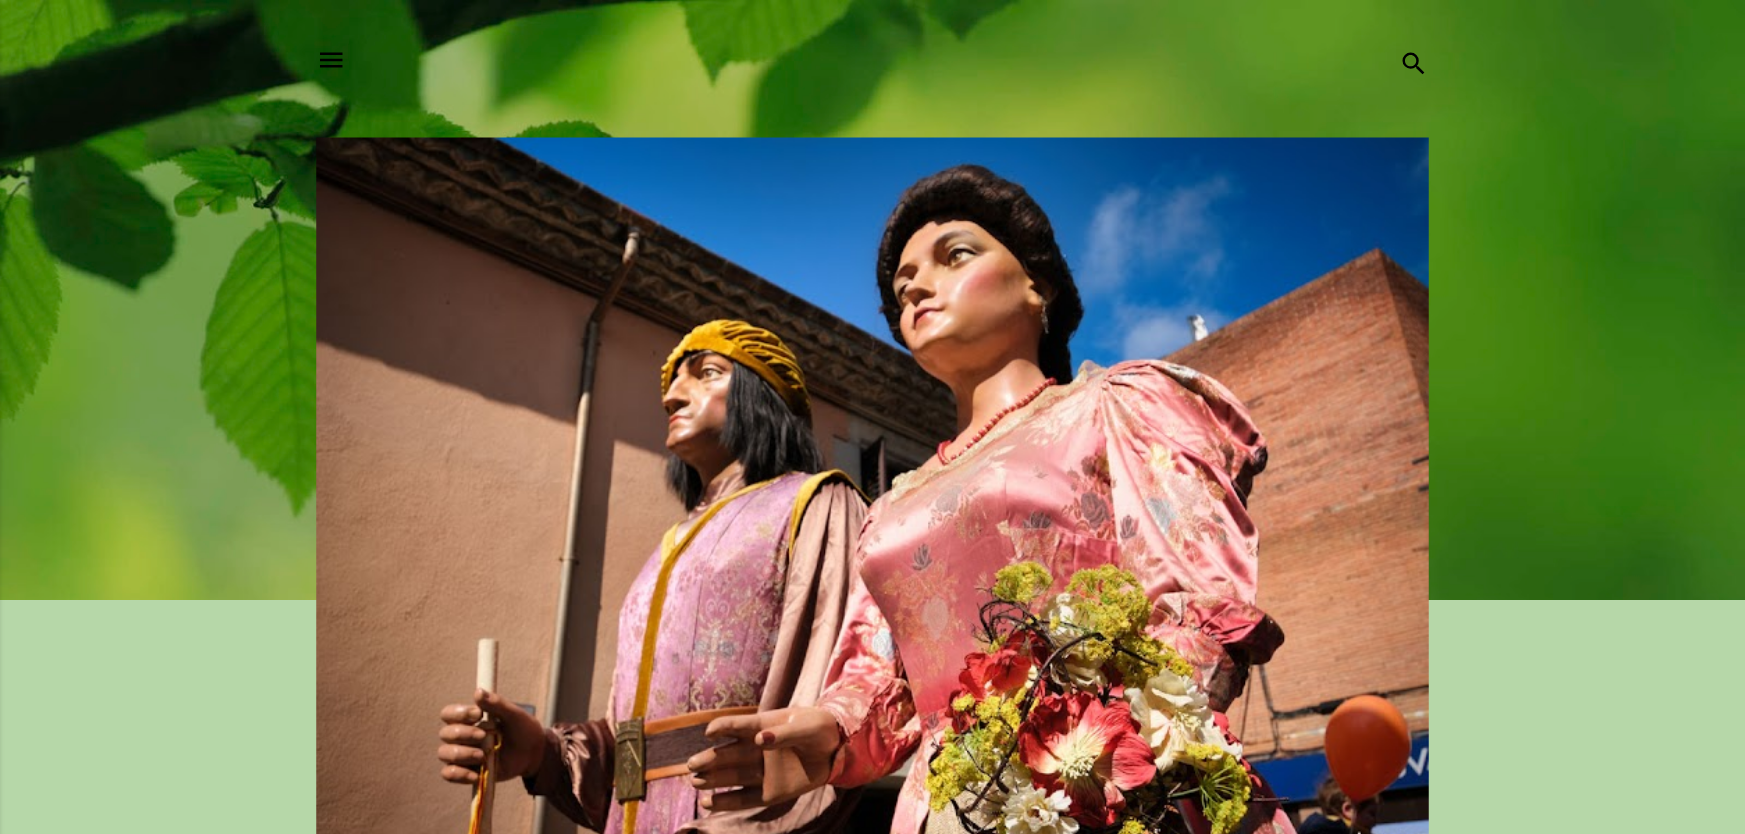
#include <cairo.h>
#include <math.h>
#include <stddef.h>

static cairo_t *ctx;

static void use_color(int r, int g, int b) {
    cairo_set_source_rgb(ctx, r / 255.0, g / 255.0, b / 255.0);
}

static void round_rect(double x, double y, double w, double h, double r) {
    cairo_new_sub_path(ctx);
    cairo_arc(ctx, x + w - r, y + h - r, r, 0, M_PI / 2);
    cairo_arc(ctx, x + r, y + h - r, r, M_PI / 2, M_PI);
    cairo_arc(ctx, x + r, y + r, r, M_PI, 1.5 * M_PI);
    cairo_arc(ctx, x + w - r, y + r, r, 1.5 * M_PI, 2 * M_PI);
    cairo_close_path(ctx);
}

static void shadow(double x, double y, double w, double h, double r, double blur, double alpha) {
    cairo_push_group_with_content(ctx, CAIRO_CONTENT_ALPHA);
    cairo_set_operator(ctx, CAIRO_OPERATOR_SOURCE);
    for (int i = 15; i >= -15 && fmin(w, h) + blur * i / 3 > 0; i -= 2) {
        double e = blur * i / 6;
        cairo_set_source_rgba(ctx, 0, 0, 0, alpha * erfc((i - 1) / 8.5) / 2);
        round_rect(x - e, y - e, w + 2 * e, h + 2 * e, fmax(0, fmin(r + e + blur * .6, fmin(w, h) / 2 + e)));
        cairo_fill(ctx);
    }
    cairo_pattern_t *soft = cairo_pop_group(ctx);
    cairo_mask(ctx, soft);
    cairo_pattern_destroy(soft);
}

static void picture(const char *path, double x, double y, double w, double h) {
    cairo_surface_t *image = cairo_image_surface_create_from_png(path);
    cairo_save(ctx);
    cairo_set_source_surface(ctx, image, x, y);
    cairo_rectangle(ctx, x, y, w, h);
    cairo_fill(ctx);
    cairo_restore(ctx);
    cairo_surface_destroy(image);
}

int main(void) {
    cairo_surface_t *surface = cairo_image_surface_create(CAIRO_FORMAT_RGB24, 1745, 834);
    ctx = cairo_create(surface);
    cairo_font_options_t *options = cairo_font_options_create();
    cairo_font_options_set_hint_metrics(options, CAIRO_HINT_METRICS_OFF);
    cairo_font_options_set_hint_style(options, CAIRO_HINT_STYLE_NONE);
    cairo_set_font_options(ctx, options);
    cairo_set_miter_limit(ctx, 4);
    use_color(182, 215, 168);
    cairo_paint(ctx);
    picture("img1.png", 0, 0, 1745, 600);
    picture("img2.png", 320, 52, 23, 16);
    picture("img3.png", 1402, 52, 23, 23);
    picture("img4.png", 316, 137, 1113, 697);
    use_color(0, 0, 0);
    shadow(-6, 1, 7, 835, 0, 2, 0.1);
    cairo_surface_write_to_png(surface, "result.png");
    cairo_font_options_destroy(options);
    cairo_destroy(ctx);
    cairo_surface_destroy(surface);
    return 0;
}
